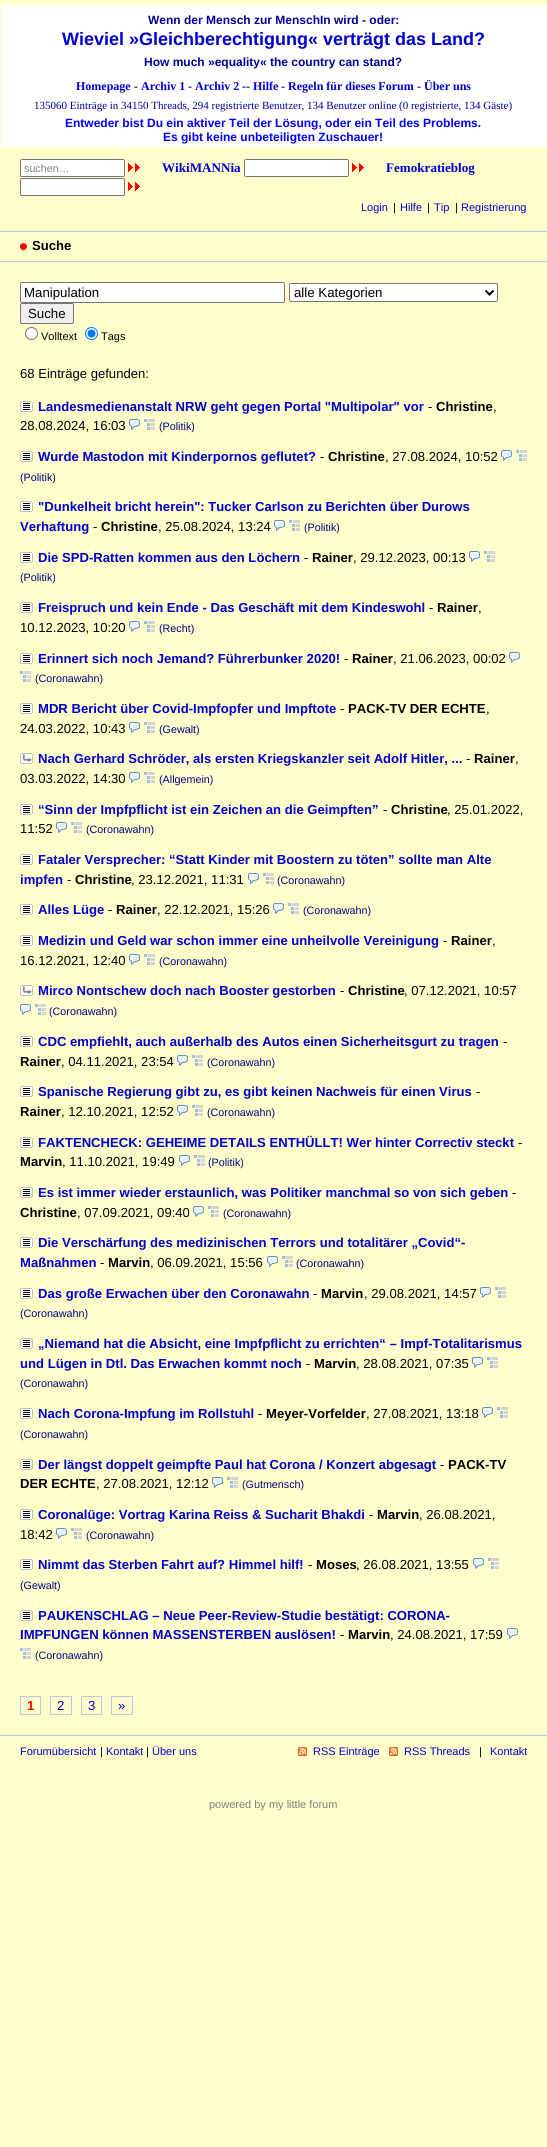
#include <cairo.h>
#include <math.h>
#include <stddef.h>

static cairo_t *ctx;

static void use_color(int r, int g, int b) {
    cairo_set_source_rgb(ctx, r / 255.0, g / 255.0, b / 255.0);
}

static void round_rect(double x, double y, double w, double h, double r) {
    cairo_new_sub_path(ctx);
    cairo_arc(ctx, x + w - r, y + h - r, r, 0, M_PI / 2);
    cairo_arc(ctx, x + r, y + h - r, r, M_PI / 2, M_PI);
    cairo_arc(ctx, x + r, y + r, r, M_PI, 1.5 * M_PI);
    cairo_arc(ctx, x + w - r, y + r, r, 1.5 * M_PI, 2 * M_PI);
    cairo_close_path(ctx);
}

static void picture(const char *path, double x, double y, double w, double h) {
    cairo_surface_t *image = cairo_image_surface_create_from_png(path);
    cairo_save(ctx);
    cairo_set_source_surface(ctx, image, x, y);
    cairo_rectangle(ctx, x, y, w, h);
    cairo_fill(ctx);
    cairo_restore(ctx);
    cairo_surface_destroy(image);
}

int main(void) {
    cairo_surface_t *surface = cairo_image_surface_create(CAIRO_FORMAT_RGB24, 547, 2147);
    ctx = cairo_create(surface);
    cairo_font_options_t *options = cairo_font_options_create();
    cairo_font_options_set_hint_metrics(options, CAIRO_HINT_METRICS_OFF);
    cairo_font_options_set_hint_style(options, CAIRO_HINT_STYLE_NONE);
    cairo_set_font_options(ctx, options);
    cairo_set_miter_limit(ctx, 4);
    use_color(255, 255, 204);
    cairo_paint(ctx);
    use_color(255, 255, 255);
    cairo_rectangle(ctx, 1, 5, 546, 142);
    cairo_fill(ctx);
    cairo_select_font_face(ctx, "Liberation Sans", CAIRO_FONT_SLANT_NORMAL, CAIRO_FONT_WEIGHT_BOLD);
    cairo_set_font_size(ctx, 12);
    use_color(0, 0, 153);
    cairo_move_to(ctx, 148, 24);
    cairo_show_text(ctx, "Wenn der Mensch zur MenschIn wird - oder:");
    cairo_set_font_size(ctx, 18);
    use_color(0, 0, 204);
    cairo_move_to(ctx, 62, 45);
    cairo_show_text(ctx, "Wieviel »Gleichberechtigung« verträgt das Land?");
    cairo_set_font_size(ctx, 12);
    use_color(0, 0, 153);
    cairo_move_to(ctx, 144, 66);
    cairo_show_text(ctx, "How much »equality« the country can stand?");
    cairo_select_font_face(ctx, "Liberation Serif", CAIRO_FONT_SLANT_NORMAL, CAIRO_FONT_WEIGHT_BOLD);
    use_color(0, 0, 204);
    cairo_move_to(ctx, 76, 90);
    cairo_show_text(ctx, "Homepage");
    use_color(0, 0, 153);
    cairo_move_to(ctx, 134, 90);
    cairo_show_text(ctx, "-");
    use_color(0, 0, 204);
    cairo_move_to(ctx, 141, 90);
    cairo_show_text(ctx, "Archiv 1");
    use_color(0, 0, 153);
    cairo_move_to(ctx, 188, 90);
    cairo_show_text(ctx, "-");
    use_color(0, 0, 204);
    cairo_move_to(ctx, 195, 90);
    cairo_show_text(ctx, "Archiv 2");
    use_color(0, 0, 153);
    cairo_move_to(ctx, 242, 90);
    cairo_show_text(ctx, "--");
    use_color(0, 0, 204);
    cairo_move_to(ctx, 253, 90);
    cairo_show_text(ctx, "Hilfe");
    use_color(0, 0, 153);
    cairo_move_to(ctx, 281, 90);
    cairo_show_text(ctx, "-");
    use_color(0, 0, 204);
    cairo_move_to(ctx, 288, 90);
    cairo_show_text(ctx, "Regeln für dieses Forum");
    use_color(0, 0, 153);
    cairo_move_to(ctx, 417, 90);
    cairo_show_text(ctx, "-");
    use_color(0, 0, 204);
    cairo_move_to(ctx, 424, 90);
    cairo_show_text(ctx, "Über uns");
    cairo_select_font_face(ctx, "Liberation Serif", CAIRO_FONT_SLANT_NORMAL, CAIRO_FONT_WEIGHT_NORMAL);
    cairo_set_font_size(ctx, 11);
    use_color(0, 0, 153);
    cairo_move_to(ctx, 34, 109);
    cairo_show_text(ctx, "135060 Einträge in 34150 Threads, 294 registrierte Benutzer, 134 Benutzer online (0 registrierte, 134 Gäste)");
    cairo_select_font_face(ctx, "Liberation Sans", CAIRO_FONT_SLANT_NORMAL, CAIRO_FONT_WEIGHT_BOLD);
    cairo_set_font_size(ctx, 12);
    use_color(0, 0, 255);
    cairo_move_to(ctx, 65, 127);
    cairo_show_text(ctx, "Entweder bist Du ein aktiver Teil der Lösung, oder ein Teil des Problems.");
    cairo_move_to(ctx, 163, 141);
    cairo_show_text(ctx, "Es gibt keine unbeteiligten Zuschauer!");
    use_color(255, 255, 255);
    round_rect(20.5, 159.5, 104, 17, 1.5);
    cairo_fill_preserve(ctx);
    use_color(118, 118, 118);
    cairo_set_line_width(ctx, 1);
    cairo_stroke(ctx);
    cairo_select_font_face(ctx, "Liberation Sans", CAIRO_FONT_SLANT_NORMAL, CAIRO_FONT_WEIGHT_NORMAL);
    cairo_set_font_size(ctx, 10.75);
    use_color(128, 128, 128);
    cairo_move_to(ctx, 24, 172);
    cairo_show_text(ctx, "suchen…");
    picture("img1.png", 128, 163, 12, 9);
    cairo_select_font_face(ctx, "Liberation Serif", CAIRO_FONT_SLANT_NORMAL, CAIRO_FONT_WEIGHT_BOLD);
    cairo_set_font_size(ctx, 13.1);
    use_color(0, 0, 204);
    cairo_move_to(ctx, 162, 172);
    cairo_show_text(ctx, "WikiMANNia");
    use_color(255, 255, 255);
    round_rect(244.5, 159.5, 104, 17, 1.5);
    cairo_fill_preserve(ctx);
    use_color(118, 118, 118);
    cairo_stroke(ctx);
    picture("img1.png", 352, 163, 12, 9);
    use_color(0, 0, 204);
    cairo_move_to(ctx, 386, 172);
    cairo_show_text(ctx, "Femokratieblog");
    use_color(255, 255, 255);
    round_rect(20.5, 178.5, 104, 17, 1.5);
    cairo_fill_preserve(ctx);
    use_color(118, 118, 118);
    cairo_stroke(ctx);
    picture("img1.png", 128, 182, 12, 9);
    cairo_select_font_face(ctx, "Liberation Sans", CAIRO_FONT_SLANT_NORMAL, CAIRO_FONT_WEIGHT_NORMAL);
    cairo_set_font_size(ctx, 11);
    use_color(0, 0, 204);
    cairo_move_to(ctx, 361, 211);
    cairo_show_text(ctx, "Login");
    use_color(0, 0, 0);
    cairo_move_to(ctx, 393, 211);
    cairo_show_text(ctx, "|");
    use_color(0, 0, 204);
    cairo_move_to(ctx, 400, 211);
    cairo_show_text(ctx, "Hilfe");
    use_color(0, 0, 0);
    cairo_move_to(ctx, 427, 211);
    cairo_show_text(ctx, "|");
    use_color(0, 0, 204);
    cairo_move_to(ctx, 434, 211);
    cairo_show_text(ctx, "Tip");
    use_color(0, 0, 0);
    cairo_move_to(ctx, 455, 211);
    cairo_show_text(ctx, "|");
    use_color(0, 0, 204);
    cairo_move_to(ctx, 461, 211);
    cairo_show_text(ctx, "Registrierung");
    use_color(186, 203, 223);
    cairo_rectangle(ctx, 0, 231, 547, 1);
    cairo_fill(ctx);
    cairo_rectangle(ctx, 0, 261, 547, 1);
    cairo_fill(ctx);
    picture("img2.png", 20, 243, 7, 8);
    cairo_select_font_face(ctx, "Liberation Sans", CAIRO_FONT_SLANT_NORMAL, CAIRO_FONT_WEIGHT_BOLD);
    cairo_set_font_size(ctx, 13.1);
    use_color(0, 0, 0);
    cairo_move_to(ctx, 32, 250);
    cairo_show_text(ctx, "Suche");
    use_color(255, 255, 255);
    round_rect(20.5, 282.5, 264, 20, 1.5);
    cairo_fill_preserve(ctx);
    use_color(118, 118, 118);
    cairo_stroke(ctx);
    cairo_select_font_face(ctx, "Liberation Sans", CAIRO_FONT_SLANT_NORMAL, CAIRO_FONT_WEIGHT_NORMAL);
    cairo_set_font_size(ctx, 13.25);
    use_color(0, 0, 0);
    cairo_move_to(ctx, 24, 297);
    cairo_show_text(ctx, "Manipulation");
    use_color(255, 255, 255);
    round_rect(289.5, 283.5, 208, 18, 1.5);
    cairo_fill_preserve(ctx);
    use_color(118, 118, 118);
    cairo_stroke(ctx);
    cairo_new_path(ctx);
    cairo_move_to(ctx, 485.5, 290.5);
    cairo_line_to(ctx, 489.5, 294.5);
    cairo_line_to(ctx, 493.5, 290.5);
    use_color(0, 0, 0);
    cairo_set_line_width(ctx, 2);
    cairo_stroke(ctx);
    cairo_move_to(ctx, 294, 297);
    cairo_show_text(ctx, "alle Kategorien");
    use_color(239, 239, 239);
    round_rect(20.5, 303.5, 53, 20, 1.5);
    cairo_fill_preserve(ctx);
    use_color(118, 118, 118);
    cairo_set_line_width(ctx, 1);
    cairo_stroke(ctx);
    use_color(0, 0, 0);
    cairo_move_to(ctx, 28, 318);
    cairo_show_text(ctx, "Suche");
    use_color(255, 255, 255);
    cairo_new_path(ctx);
    cairo_arc(ctx, 31.5, 333.5, 6, 0, 2 * M_PI);
    cairo_fill_preserve(ctx);
    use_color(118, 118, 118);
    cairo_stroke(ctx);
    cairo_set_font_size(ctx, 11);
    use_color(0, 0, 0);
    cairo_move_to(ctx, 41, 340);
    cairo_show_text(ctx, "Volltext");
    use_color(255, 255, 255);
    cairo_new_path(ctx);
    cairo_arc(ctx, 91.5, 333.5, 6, 0, 2 * M_PI);
    cairo_fill_preserve(ctx);
    use_color(0, 117, 255);
    cairo_stroke(ctx);
    cairo_arc(ctx, 91.5, 333.5, 4, 0, 2 * M_PI);
    cairo_fill(ctx);
    use_color(0, 0, 0);
    cairo_move_to(ctx, 101, 340);
    cairo_show_text(ctx, "Tags");
    cairo_set_font_size(ctx, 13.1);
    cairo_move_to(ctx, 20, 378);
    cairo_show_text(ctx, "68 Einträge gefunden:");
    picture("img3.png", 20, 401, 13, 11);
    cairo_select_font_face(ctx, "Liberation Sans", CAIRO_FONT_SLANT_NORMAL, CAIRO_FONT_WEIGHT_BOLD);
    use_color(0, 0, 204);
    cairo_move_to(ctx, 38, 411);
    cairo_show_text(ctx, "Landesmedienanstalt NRW geht gegen Portal \"Multipolar\" vor");
    cairo_select_font_face(ctx, "Liberation Sans", CAIRO_FONT_SLANT_NORMAL, CAIRO_FONT_WEIGHT_NORMAL);
    use_color(0, 0, 0);
    cairo_move_to(ctx, 428, 411);
    cairo_show_text(ctx, "-");
    cairo_select_font_face(ctx, "Liberation Sans", CAIRO_FONT_SLANT_NORMAL, CAIRO_FONT_WEIGHT_BOLD);
    cairo_move_to(ctx, 436, 411);
    cairo_show_text(ctx, "Christine");
    cairo_select_font_face(ctx, "Liberation Sans", CAIRO_FONT_SLANT_NORMAL, CAIRO_FONT_WEIGHT_NORMAL);
    cairo_move_to(ctx, 493, 411);
    cairo_show_text(ctx, ",");
    cairo_move_to(ctx, 20, 430);
    cairo_show_text(ctx, "28.08.2024, 16:03");
    picture("img4.png", 129, 419, 11, 11);
    picture("img5.png", 144, 419, 11, 11);
    cairo_set_font_size(ctx, 10.75);
    use_color(0, 0, 128);
    cairo_move_to(ctx, 159, 430);
    cairo_show_text(ctx, "(Politik)");
    picture("img3.png", 20, 451, 13, 11);
    cairo_select_font_face(ctx, "Liberation Sans", CAIRO_FONT_SLANT_NORMAL, CAIRO_FONT_WEIGHT_BOLD);
    cairo_set_font_size(ctx, 13.1);
    use_color(0, 0, 204);
    cairo_move_to(ctx, 38, 461);
    cairo_show_text(ctx, "Wurde Mastodon mit Kinderpornos geflutet?");
    cairo_select_font_face(ctx, "Liberation Sans", CAIRO_FONT_SLANT_NORMAL, CAIRO_FONT_WEIGHT_NORMAL);
    use_color(0, 0, 0);
    cairo_move_to(ctx, 320, 461);
    cairo_show_text(ctx, "-");
    cairo_select_font_face(ctx, "Liberation Sans", CAIRO_FONT_SLANT_NORMAL, CAIRO_FONT_WEIGHT_BOLD);
    cairo_move_to(ctx, 328, 461);
    cairo_show_text(ctx, "Christine");
    cairo_select_font_face(ctx, "Liberation Sans", CAIRO_FONT_SLANT_NORMAL, CAIRO_FONT_WEIGHT_NORMAL);
    cairo_move_to(ctx, 385, 461);
    cairo_show_text(ctx, ", 27.08.2024, 10:52");
    picture("img4.png", 501, 450, 11, 11);
    picture("img5.png", 516, 450, 11, 11);
    cairo_set_font_size(ctx, 10.75);
    use_color(0, 0, 128);
    cairo_move_to(ctx, 20, 481);
    cairo_show_text(ctx, "(Politik)");
    picture("img3.png", 20, 501, 13, 11);
    cairo_select_font_face(ctx, "Liberation Sans", CAIRO_FONT_SLANT_NORMAL, CAIRO_FONT_WEIGHT_BOLD);
    cairo_set_font_size(ctx, 13.1);
    use_color(0, 0, 204);
    cairo_move_to(ctx, 38, 511);
    cairo_show_text(ctx, "\"Dunkelheit bricht herein\": Tucker Carlson zu Berichten über Durows");
    cairo_move_to(ctx, 20, 531);
    cairo_show_text(ctx, "Verhaftung");
    cairo_select_font_face(ctx, "Liberation Sans", CAIRO_FONT_SLANT_NORMAL, CAIRO_FONT_WEIGHT_NORMAL);
    use_color(0, 0, 0);
    cairo_move_to(ctx, 93, 531);
    cairo_show_text(ctx, "-");
    cairo_select_font_face(ctx, "Liberation Sans", CAIRO_FONT_SLANT_NORMAL, CAIRO_FONT_WEIGHT_BOLD);
    cairo_move_to(ctx, 101, 531);
    cairo_show_text(ctx, "Christine");
    cairo_select_font_face(ctx, "Liberation Sans", CAIRO_FONT_SLANT_NORMAL, CAIRO_FONT_WEIGHT_NORMAL);
    cairo_move_to(ctx, 158, 531);
    cairo_show_text(ctx, ", 25.08.2024, 13:24");
    picture("img4.png", 274, 520, 11, 11);
    picture("img5.png", 289, 520, 11, 11);
    cairo_set_font_size(ctx, 10.75);
    use_color(0, 0, 128);
    cairo_move_to(ctx, 304, 531);
    cairo_show_text(ctx, "(Politik)");
    picture("img3.png", 20, 552, 13, 11);
    cairo_select_font_face(ctx, "Liberation Sans", CAIRO_FONT_SLANT_NORMAL, CAIRO_FONT_WEIGHT_BOLD);
    cairo_set_font_size(ctx, 13.1);
    use_color(0, 0, 204);
    cairo_move_to(ctx, 38, 562);
    cairo_show_text(ctx, "Die SPD-Ratten kommen aus den Löchern");
    cairo_select_font_face(ctx, "Liberation Sans", CAIRO_FONT_SLANT_NORMAL, CAIRO_FONT_WEIGHT_NORMAL);
    use_color(0, 0, 0);
    cairo_move_to(ctx, 304, 562);
    cairo_show_text(ctx, "-");
    cairo_select_font_face(ctx, "Liberation Sans", CAIRO_FONT_SLANT_NORMAL, CAIRO_FONT_WEIGHT_BOLD);
    cairo_move_to(ctx, 312, 562);
    cairo_show_text(ctx, "Rainer");
    cairo_select_font_face(ctx, "Liberation Sans", CAIRO_FONT_SLANT_NORMAL, CAIRO_FONT_WEIGHT_NORMAL);
    cairo_move_to(ctx, 353, 562);
    cairo_show_text(ctx, ", 29.12.2023, 00:13");
    picture("img4.png", 469, 551, 11, 11);
    picture("img5.png", 484, 551, 11, 11);
    cairo_set_font_size(ctx, 10.75);
    use_color(0, 0, 128);
    cairo_move_to(ctx, 20, 581);
    cairo_show_text(ctx, "(Politik)");
    picture("img3.png", 20, 602, 13, 11);
    cairo_select_font_face(ctx, "Liberation Sans", CAIRO_FONT_SLANT_NORMAL, CAIRO_FONT_WEIGHT_BOLD);
    cairo_set_font_size(ctx, 13.1);
    use_color(0, 0, 204);
    cairo_move_to(ctx, 38, 612);
    cairo_show_text(ctx, "Freispruch und kein Ende - Das Geschäft mit dem Kindeswohl");
    cairo_select_font_face(ctx, "Liberation Sans", CAIRO_FONT_SLANT_NORMAL, CAIRO_FONT_WEIGHT_NORMAL);
    use_color(0, 0, 0);
    cairo_move_to(ctx, 429, 612);
    cairo_show_text(ctx, "-");
    cairo_select_font_face(ctx, "Liberation Sans", CAIRO_FONT_SLANT_NORMAL, CAIRO_FONT_WEIGHT_BOLD);
    cairo_move_to(ctx, 437, 612);
    cairo_show_text(ctx, "Rainer");
    cairo_select_font_face(ctx, "Liberation Sans", CAIRO_FONT_SLANT_NORMAL, CAIRO_FONT_WEIGHT_NORMAL);
    cairo_move_to(ctx, 478, 612);
    cairo_show_text(ctx, ",");
    cairo_move_to(ctx, 20, 632);
    cairo_show_text(ctx, "10.12.2023, 10:20");
    picture("img4.png", 129, 621, 11, 11);
    picture("img5.png", 144, 621, 11, 11);
    cairo_set_font_size(ctx, 10.75);
    use_color(0, 0, 128);
    cairo_move_to(ctx, 159, 632);
    cairo_show_text(ctx, "(Recht)");
    picture("img3.png", 20, 653, 13, 11);
    cairo_select_font_face(ctx, "Liberation Sans", CAIRO_FONT_SLANT_NORMAL, CAIRO_FONT_WEIGHT_BOLD);
    cairo_set_font_size(ctx, 13.1);
    use_color(0, 0, 204);
    cairo_move_to(ctx, 38, 663);
    cairo_show_text(ctx, "Erinnert sich noch Jemand? Führerbunker 2020!");
    cairo_select_font_face(ctx, "Liberation Sans", CAIRO_FONT_SLANT_NORMAL, CAIRO_FONT_WEIGHT_NORMAL);
    use_color(0, 0, 0);
    cairo_move_to(ctx, 344, 663);
    cairo_show_text(ctx, "-");
    cairo_select_font_face(ctx, "Liberation Sans", CAIRO_FONT_SLANT_NORMAL, CAIRO_FONT_WEIGHT_BOLD);
    cairo_move_to(ctx, 352, 663);
    cairo_show_text(ctx, "Rainer");
    cairo_select_font_face(ctx, "Liberation Sans", CAIRO_FONT_SLANT_NORMAL, CAIRO_FONT_WEIGHT_NORMAL);
    cairo_move_to(ctx, 393, 663);
    cairo_show_text(ctx, ", 21.06.2023, 00:02");
    picture("img4.png", 509, 652, 11, 11);
    picture("img5.png", 20, 671, 11, 11);
    cairo_set_font_size(ctx, 10.75);
    use_color(0, 0, 128);
    cairo_move_to(ctx, 35, 682);
    cairo_show_text(ctx, "(Coronawahn)");
    picture("img3.png", 20, 703, 13, 11);
    cairo_select_font_face(ctx, "Liberation Sans", CAIRO_FONT_SLANT_NORMAL, CAIRO_FONT_WEIGHT_BOLD);
    cairo_set_font_size(ctx, 13.1);
    use_color(0, 0, 204);
    cairo_move_to(ctx, 38, 713);
    cairo_show_text(ctx, "MDR Bericht über Covid-Impfopfer und Impftote");
    cairo_select_font_face(ctx, "Liberation Sans", CAIRO_FONT_SLANT_NORMAL, CAIRO_FONT_WEIGHT_NORMAL);
    use_color(0, 0, 0);
    cairo_move_to(ctx, 340, 713);
    cairo_show_text(ctx, "-");
    cairo_select_font_face(ctx, "Liberation Sans", CAIRO_FONT_SLANT_NORMAL, CAIRO_FONT_WEIGHT_BOLD);
    cairo_move_to(ctx, 348, 713);
    cairo_show_text(ctx, "PACK-TV DER ECHTE");
    cairo_select_font_face(ctx, "Liberation Sans", CAIRO_FONT_SLANT_NORMAL, CAIRO_FONT_WEIGHT_NORMAL);
    cairo_move_to(ctx, 486, 713);
    cairo_show_text(ctx, ",");
    cairo_move_to(ctx, 20, 733);
    cairo_show_text(ctx, "24.03.2022, 10:43");
    picture("img4.png", 129, 722, 11, 11);
    picture("img5.png", 144, 722, 11, 11);
    cairo_set_font_size(ctx, 10.75);
    use_color(0, 0, 128);
    cairo_move_to(ctx, 159, 733);
    cairo_show_text(ctx, "(Gewalt)");
    picture("img6.png", 20, 753, 13, 11);
    cairo_select_font_face(ctx, "Liberation Sans", CAIRO_FONT_SLANT_NORMAL, CAIRO_FONT_WEIGHT_BOLD);
    cairo_set_font_size(ctx, 13.1);
    use_color(0, 0, 204);
    cairo_move_to(ctx, 38, 763);
    cairo_show_text(ctx, "Nach Gerhard Schröder, als ersten Kriegskanzler seit Adolf Hitler, ...");
    cairo_select_font_face(ctx, "Liberation Sans", CAIRO_FONT_SLANT_NORMAL, CAIRO_FONT_WEIGHT_NORMAL);
    use_color(0, 0, 0);
    cairo_move_to(ctx, 466, 763);
    cairo_show_text(ctx, "-");
    cairo_select_font_face(ctx, "Liberation Sans", CAIRO_FONT_SLANT_NORMAL, CAIRO_FONT_WEIGHT_BOLD);
    cairo_move_to(ctx, 474, 763);
    cairo_show_text(ctx, "Rainer");
    cairo_select_font_face(ctx, "Liberation Sans", CAIRO_FONT_SLANT_NORMAL, CAIRO_FONT_WEIGHT_NORMAL);
    cairo_move_to(ctx, 515, 763);
    cairo_show_text(ctx, ",");
    cairo_move_to(ctx, 20, 783);
    cairo_show_text(ctx, "03.03.2022, 14:30");
    picture("img4.png", 129, 772, 11, 11);
    picture("img5.png", 144, 772, 11, 11);
    cairo_set_font_size(ctx, 10.75);
    use_color(0, 0, 128);
    cairo_move_to(ctx, 159, 783);
    cairo_show_text(ctx, "(Allgemein)");
    picture("img3.png", 20, 804, 13, 11);
    cairo_select_font_face(ctx, "Liberation Sans", CAIRO_FONT_SLANT_NORMAL, CAIRO_FONT_WEIGHT_BOLD);
    cairo_set_font_size(ctx, 13.1);
    use_color(0, 0, 204);
    cairo_move_to(ctx, 38, 814);
    cairo_show_text(ctx, "“Sinn der Impfpflicht ist ein Zeichen an die Geimpften”");
    cairo_select_font_face(ctx, "Liberation Sans", CAIRO_FONT_SLANT_NORMAL, CAIRO_FONT_WEIGHT_NORMAL);
    use_color(0, 0, 0);
    cairo_move_to(ctx, 383, 814);
    cairo_show_text(ctx, "-");
    cairo_select_font_face(ctx, "Liberation Sans", CAIRO_FONT_SLANT_NORMAL, CAIRO_FONT_WEIGHT_BOLD);
    cairo_move_to(ctx, 391, 814);
    cairo_show_text(ctx, "Christine");
    cairo_select_font_face(ctx, "Liberation Sans", CAIRO_FONT_SLANT_NORMAL, CAIRO_FONT_WEIGHT_NORMAL);
    cairo_move_to(ctx, 447, 814);
    cairo_show_text(ctx, ", 25.01.2022,");
    cairo_move_to(ctx, 20, 833);
    cairo_show_text(ctx, "11:52");
    picture("img4.png", 56, 822, 11, 11);
    picture("img5.png", 71, 822, 11, 11);
    cairo_set_font_size(ctx, 10.75);
    use_color(0, 0, 128);
    cairo_move_to(ctx, 86, 833);
    cairo_show_text(ctx, "(Coronawahn)");
    picture("img3.png", 20, 854, 13, 11);
    cairo_select_font_face(ctx, "Liberation Sans", CAIRO_FONT_SLANT_NORMAL, CAIRO_FONT_WEIGHT_BOLD);
    cairo_set_font_size(ctx, 13.1);
    use_color(0, 0, 204);
    cairo_move_to(ctx, 38, 864);
    cairo_show_text(ctx, "Fataler Versprecher: “Statt Kinder mit Boostern zu töten” sollte man Alte");
    cairo_move_to(ctx, 20, 884);
    cairo_show_text(ctx, "impfen");
    cairo_select_font_face(ctx, "Liberation Sans", CAIRO_FONT_SLANT_NORMAL, CAIRO_FONT_WEIGHT_NORMAL);
    use_color(0, 0, 0);
    cairo_move_to(ctx, 67, 884);
    cairo_show_text(ctx, "-");
    cairo_select_font_face(ctx, "Liberation Sans", CAIRO_FONT_SLANT_NORMAL, CAIRO_FONT_WEIGHT_BOLD);
    cairo_move_to(ctx, 75, 884);
    cairo_show_text(ctx, "Christine");
    cairo_select_font_face(ctx, "Liberation Sans", CAIRO_FONT_SLANT_NORMAL, CAIRO_FONT_WEIGHT_NORMAL);
    cairo_move_to(ctx, 131, 884);
    cairo_show_text(ctx, ", 23.12.2021, 11:31");
    picture("img4.png", 248, 873, 11, 11);
    picture("img5.png", 263, 873, 11, 11);
    cairo_set_font_size(ctx, 10.75);
    use_color(0, 0, 128);
    cairo_move_to(ctx, 277, 884);
    cairo_show_text(ctx, "(Coronawahn)");
    picture("img3.png", 20, 904, 13, 11);
    cairo_select_font_face(ctx, "Liberation Sans", CAIRO_FONT_SLANT_NORMAL, CAIRO_FONT_WEIGHT_BOLD);
    cairo_set_font_size(ctx, 13.1);
    use_color(0, 0, 204);
    cairo_move_to(ctx, 38, 914);
    cairo_show_text(ctx, "Alles Lüge");
    cairo_select_font_face(ctx, "Liberation Sans", CAIRO_FONT_SLANT_NORMAL, CAIRO_FONT_WEIGHT_NORMAL);
    use_color(0, 0, 0);
    cairo_move_to(ctx, 108, 914);
    cairo_show_text(ctx, "-");
    cairo_select_font_face(ctx, "Liberation Sans", CAIRO_FONT_SLANT_NORMAL, CAIRO_FONT_WEIGHT_BOLD);
    cairo_move_to(ctx, 116, 914);
    cairo_show_text(ctx, "Rainer");
    cairo_select_font_face(ctx, "Liberation Sans", CAIRO_FONT_SLANT_NORMAL, CAIRO_FONT_WEIGHT_NORMAL);
    cairo_move_to(ctx, 157, 914);
    cairo_show_text(ctx, ", 22.12.2021, 15:26");
    picture("img4.png", 273, 903, 11, 11);
    picture("img5.png", 288, 903, 11, 11);
    cairo_set_font_size(ctx, 10.75);
    use_color(0, 0, 128);
    cairo_move_to(ctx, 303, 914);
    cairo_show_text(ctx, "(Coronawahn)");
    picture("img3.png", 20, 935, 13, 11);
    cairo_select_font_face(ctx, "Liberation Sans", CAIRO_FONT_SLANT_NORMAL, CAIRO_FONT_WEIGHT_BOLD);
    cairo_set_font_size(ctx, 13.1);
    use_color(0, 0, 204);
    cairo_move_to(ctx, 38, 945);
    cairo_show_text(ctx, "Medizin und Geld war schon immer eine unheilvolle Vereinigung");
    cairo_select_font_face(ctx, "Liberation Sans", CAIRO_FONT_SLANT_NORMAL, CAIRO_FONT_WEIGHT_NORMAL);
    use_color(0, 0, 0);
    cairo_move_to(ctx, 443, 945);
    cairo_show_text(ctx, "-");
    cairo_select_font_face(ctx, "Liberation Sans", CAIRO_FONT_SLANT_NORMAL, CAIRO_FONT_WEIGHT_BOLD);
    cairo_move_to(ctx, 451, 945);
    cairo_show_text(ctx, "Rainer");
    cairo_select_font_face(ctx, "Liberation Sans", CAIRO_FONT_SLANT_NORMAL, CAIRO_FONT_WEIGHT_NORMAL);
    cairo_move_to(ctx, 492, 945);
    cairo_show_text(ctx, ",");
    cairo_move_to(ctx, 20, 965);
    cairo_show_text(ctx, "16.12.2021, 12:40");
    picture("img4.png", 129, 954, 11, 11);
    picture("img5.png", 144, 954, 11, 11);
    cairo_set_font_size(ctx, 10.75);
    use_color(0, 0, 128);
    cairo_move_to(ctx, 159, 965);
    cairo_show_text(ctx, "(Coronawahn)");
    picture("img6.png", 20, 985, 13, 11);
    cairo_select_font_face(ctx, "Liberation Sans", CAIRO_FONT_SLANT_NORMAL, CAIRO_FONT_WEIGHT_BOLD);
    cairo_set_font_size(ctx, 13.1);
    use_color(0, 0, 204);
    cairo_move_to(ctx, 38, 995);
    cairo_show_text(ctx, "Mirco Nontschew doch nach Booster gestorben");
    cairo_select_font_face(ctx, "Liberation Sans", CAIRO_FONT_SLANT_NORMAL, CAIRO_FONT_WEIGHT_NORMAL);
    use_color(0, 0, 0);
    cairo_move_to(ctx, 340, 995);
    cairo_show_text(ctx, "-");
    cairo_select_font_face(ctx, "Liberation Sans", CAIRO_FONT_SLANT_NORMAL, CAIRO_FONT_WEIGHT_BOLD);
    cairo_move_to(ctx, 348, 995);
    cairo_show_text(ctx, "Christine");
    cairo_select_font_face(ctx, "Liberation Sans", CAIRO_FONT_SLANT_NORMAL, CAIRO_FONT_WEIGHT_NORMAL);
    cairo_move_to(ctx, 404, 995);
    cairo_show_text(ctx, ", 07.12.2021, 10:57");
    picture("img4.png", 20, 1004, 11, 11);
    picture("img5.png", 35, 1004, 11, 11);
    cairo_set_font_size(ctx, 10.75);
    use_color(0, 0, 128);
    cairo_move_to(ctx, 49, 1015);
    cairo_show_text(ctx, "(Coronawahn)");
    picture("img3.png", 20, 1036, 13, 11);
    cairo_select_font_face(ctx, "Liberation Sans", CAIRO_FONT_SLANT_NORMAL, CAIRO_FONT_WEIGHT_BOLD);
    cairo_set_font_size(ctx, 13.1);
    use_color(0, 0, 204);
    cairo_move_to(ctx, 38, 1046);
    cairo_show_text(ctx, "CDC empfiehlt, auch außerhalb des Autos einen Sicherheitsgurt zu tragen");
    cairo_select_font_face(ctx, "Liberation Sans", CAIRO_FONT_SLANT_NORMAL, CAIRO_FONT_WEIGHT_NORMAL);
    use_color(0, 0, 0);
    cairo_move_to(ctx, 503, 1046);
    cairo_show_text(ctx, "-");
    cairo_select_font_face(ctx, "Liberation Sans", CAIRO_FONT_SLANT_NORMAL, CAIRO_FONT_WEIGHT_BOLD);
    cairo_move_to(ctx, 20, 1066);
    cairo_show_text(ctx, "Rainer");
    cairo_select_font_face(ctx, "Liberation Sans", CAIRO_FONT_SLANT_NORMAL, CAIRO_FONT_WEIGHT_NORMAL);
    cairo_move_to(ctx, 61, 1066);
    cairo_show_text(ctx, ", 04.11.2021, 23:54");
    picture("img4.png", 177, 1055, 11, 11);
    picture("img5.png", 192, 1055, 11, 11);
    cairo_set_font_size(ctx, 10.75);
    use_color(0, 0, 128);
    cairo_move_to(ctx, 207, 1066);
    cairo_show_text(ctx, "(Coronawahn)");
    picture("img3.png", 20, 1086, 13, 11);
    cairo_select_font_face(ctx, "Liberation Sans", CAIRO_FONT_SLANT_NORMAL, CAIRO_FONT_WEIGHT_BOLD);
    cairo_set_font_size(ctx, 13.1);
    use_color(0, 0, 204);
    cairo_move_to(ctx, 38, 1096);
    cairo_show_text(ctx, "Spanische Regierung gibt zu, es gibt keinen Nachweis für einen Virus");
    cairo_select_font_face(ctx, "Liberation Sans", CAIRO_FONT_SLANT_NORMAL, CAIRO_FONT_WEIGHT_NORMAL);
    use_color(0, 0, 0);
    cairo_move_to(ctx, 476, 1096);
    cairo_show_text(ctx, "-");
    cairo_select_font_face(ctx, "Liberation Sans", CAIRO_FONT_SLANT_NORMAL, CAIRO_FONT_WEIGHT_BOLD);
    cairo_move_to(ctx, 20, 1116);
    cairo_show_text(ctx, "Rainer");
    cairo_select_font_face(ctx, "Liberation Sans", CAIRO_FONT_SLANT_NORMAL, CAIRO_FONT_WEIGHT_NORMAL);
    cairo_move_to(ctx, 61, 1116);
    cairo_show_text(ctx, ", 12.10.2021, 12:52");
    picture("img4.png", 177, 1105, 11, 11);
    picture("img5.png", 192, 1105, 11, 11);
    cairo_set_font_size(ctx, 10.75);
    use_color(0, 0, 128);
    cairo_move_to(ctx, 207, 1116);
    cairo_show_text(ctx, "(Coronawahn)");
    picture("img3.png", 20, 1137, 13, 11);
    cairo_select_font_face(ctx, "Liberation Sans", CAIRO_FONT_SLANT_NORMAL, CAIRO_FONT_WEIGHT_BOLD);
    cairo_set_font_size(ctx, 13.1);
    use_color(0, 0, 204);
    cairo_move_to(ctx, 38, 1147);
    cairo_show_text(ctx, "FAKTENCHECK: GEHEIME DETAILS ENTHÜLLT! Wer hinter Correctiv steckt");
    cairo_select_font_face(ctx, "Liberation Sans", CAIRO_FONT_SLANT_NORMAL, CAIRO_FONT_WEIGHT_NORMAL);
    use_color(0, 0, 0);
    cairo_move_to(ctx, 518, 1147);
    cairo_show_text(ctx, "-");
    cairo_select_font_face(ctx, "Liberation Sans", CAIRO_FONT_SLANT_NORMAL, CAIRO_FONT_WEIGHT_BOLD);
    cairo_move_to(ctx, 20, 1166);
    cairo_show_text(ctx, "Marvin");
    cairo_select_font_face(ctx, "Liberation Sans", CAIRO_FONT_SLANT_NORMAL, CAIRO_FONT_WEIGHT_NORMAL);
    cairo_move_to(ctx, 62, 1166);
    cairo_show_text(ctx, ", 11.10.2021, 19:49");
    picture("img4.png", 179, 1155, 11, 11);
    picture("img5.png", 194, 1155, 11, 11);
    cairo_set_font_size(ctx, 10.75);
    use_color(0, 0, 128);
    cairo_move_to(ctx, 208, 1166);
    cairo_show_text(ctx, "(Politik)");
    picture("img3.png", 20, 1187, 13, 11);
    cairo_select_font_face(ctx, "Liberation Sans", CAIRO_FONT_SLANT_NORMAL, CAIRO_FONT_WEIGHT_BOLD);
    cairo_set_font_size(ctx, 13.1);
    use_color(0, 0, 204);
    cairo_move_to(ctx, 38, 1197);
    cairo_show_text(ctx, "Es ist immer wieder erstaunlich, was Politiker manchmal so von sich geben");
    cairo_select_font_face(ctx, "Liberation Sans", CAIRO_FONT_SLANT_NORMAL, CAIRO_FONT_WEIGHT_NORMAL);
    use_color(0, 0, 0);
    cairo_move_to(ctx, 512, 1197);
    cairo_show_text(ctx, "-");
    cairo_select_font_face(ctx, "Liberation Sans", CAIRO_FONT_SLANT_NORMAL, CAIRO_FONT_WEIGHT_BOLD);
    cairo_move_to(ctx, 20, 1217);
    cairo_show_text(ctx, "Christine");
    cairo_select_font_face(ctx, "Liberation Sans", CAIRO_FONT_SLANT_NORMAL, CAIRO_FONT_WEIGHT_NORMAL);
    cairo_move_to(ctx, 77, 1217);
    cairo_show_text(ctx, ", 07.09.2021, 09:40");
    picture("img4.png", 193, 1206, 11, 11);
    picture("img5.png", 208, 1206, 11, 11);
    cairo_set_font_size(ctx, 10.75);
    use_color(0, 0, 128);
    cairo_move_to(ctx, 223, 1217);
    cairo_show_text(ctx, "(Coronawahn)");
    picture("img3.png", 20, 1237, 13, 11);
    cairo_select_font_face(ctx, "Liberation Sans", CAIRO_FONT_SLANT_NORMAL, CAIRO_FONT_WEIGHT_BOLD);
    cairo_set_font_size(ctx, 13.1);
    use_color(0, 0, 204);
    cairo_move_to(ctx, 38, 1247);
    cairo_show_text(ctx, "Die Verschärfung des medizinischen Terrors und totalitärer „Covid“-");
    cairo_move_to(ctx, 20, 1267);
    cairo_show_text(ctx, "Maßnahmen");
    cairo_select_font_face(ctx, "Liberation Sans", CAIRO_FONT_SLANT_NORMAL, CAIRO_FONT_WEIGHT_NORMAL);
    use_color(0, 0, 0);
    cairo_move_to(ctx, 100, 1267);
    cairo_show_text(ctx, "-");
    cairo_select_font_face(ctx, "Liberation Sans", CAIRO_FONT_SLANT_NORMAL, CAIRO_FONT_WEIGHT_BOLD);
    cairo_move_to(ctx, 108, 1267);
    cairo_show_text(ctx, "Marvin");
    cairo_select_font_face(ctx, "Liberation Sans", CAIRO_FONT_SLANT_NORMAL, CAIRO_FONT_WEIGHT_NORMAL);
    cairo_move_to(ctx, 150, 1267);
    cairo_show_text(ctx, ", 06.09.2021, 15:56");
    picture("img4.png", 267, 1256, 11, 11);
    picture("img5.png", 282, 1256, 11, 11);
    cairo_set_font_size(ctx, 10.75);
    use_color(0, 0, 128);
    cairo_move_to(ctx, 296, 1267);
    cairo_show_text(ctx, "(Coronawahn)");
    picture("img3.png", 20, 1288, 13, 11);
    cairo_select_font_face(ctx, "Liberation Sans", CAIRO_FONT_SLANT_NORMAL, CAIRO_FONT_WEIGHT_BOLD);
    cairo_set_font_size(ctx, 13.1);
    use_color(0, 0, 204);
    cairo_move_to(ctx, 38, 1298);
    cairo_show_text(ctx, "Das große Erwachen über den Coronawahn");
    cairo_select_font_face(ctx, "Liberation Sans", CAIRO_FONT_SLANT_NORMAL, CAIRO_FONT_WEIGHT_NORMAL);
    use_color(0, 0, 0);
    cairo_move_to(ctx, 313, 1298);
    cairo_show_text(ctx, "-");
    cairo_select_font_face(ctx, "Liberation Sans", CAIRO_FONT_SLANT_NORMAL, CAIRO_FONT_WEIGHT_BOLD);
    cairo_move_to(ctx, 321, 1298);
    cairo_show_text(ctx, "Marvin");
    cairo_select_font_face(ctx, "Liberation Sans", CAIRO_FONT_SLANT_NORMAL, CAIRO_FONT_WEIGHT_NORMAL);
    cairo_move_to(ctx, 364, 1298);
    cairo_show_text(ctx, ", 29.08.2021, 14:57");
    picture("img4.png", 480, 1287, 11, 11);
    picture("img5.png", 495, 1287, 11, 11);
    cairo_set_font_size(ctx, 10.75);
    use_color(0, 0, 128);
    cairo_move_to(ctx, 20, 1317);
    cairo_show_text(ctx, "(Coronawahn)");
    picture("img3.png", 20, 1338, 13, 11);
    cairo_select_font_face(ctx, "Liberation Sans", CAIRO_FONT_SLANT_NORMAL, CAIRO_FONT_WEIGHT_BOLD);
    cairo_set_font_size(ctx, 13.1);
    use_color(0, 0, 204);
    cairo_move_to(ctx, 38, 1348);
    cairo_show_text(ctx, "„Niemand hat die Absicht, eine Impfpflicht zu errichten“ – Impf-Totalitarismus");
    cairo_move_to(ctx, 20, 1368);
    cairo_show_text(ctx, "und Lügen in Dtl. Das Erwachen kommt noch");
    cairo_select_font_face(ctx, "Liberation Sans", CAIRO_FONT_SLANT_NORMAL, CAIRO_FONT_WEIGHT_NORMAL);
    use_color(0, 0, 0);
    cairo_move_to(ctx, 306, 1368);
    cairo_show_text(ctx, "-");
    cairo_select_font_face(ctx, "Liberation Sans", CAIRO_FONT_SLANT_NORMAL, CAIRO_FONT_WEIGHT_BOLD);
    cairo_move_to(ctx, 314, 1368);
    cairo_show_text(ctx, "Marvin");
    cairo_select_font_face(ctx, "Liberation Sans", CAIRO_FONT_SLANT_NORMAL, CAIRO_FONT_WEIGHT_NORMAL);
    cairo_move_to(ctx, 356, 1368);
    cairo_show_text(ctx, ", 28.08.2021, 07:35");
    picture("img4.png", 472, 1357, 11, 11);
    picture("img5.png", 487, 1357, 11, 11);
    cairo_set_font_size(ctx, 10.75);
    use_color(0, 0, 128);
    cairo_move_to(ctx, 20, 1387);
    cairo_show_text(ctx, "(Coronawahn)");
    picture("img3.png", 20, 1408, 13, 11);
    cairo_select_font_face(ctx, "Liberation Sans", CAIRO_FONT_SLANT_NORMAL, CAIRO_FONT_WEIGHT_BOLD);
    cairo_set_font_size(ctx, 13.1);
    use_color(0, 0, 204);
    cairo_move_to(ctx, 38, 1418);
    cairo_show_text(ctx, "Nach Corona-Impfung im Rollstuhl");
    cairo_select_font_face(ctx, "Liberation Sans", CAIRO_FONT_SLANT_NORMAL, CAIRO_FONT_WEIGHT_NORMAL);
    use_color(0, 0, 0);
    cairo_move_to(ctx, 258, 1418);
    cairo_show_text(ctx, "-");
    cairo_select_font_face(ctx, "Liberation Sans", CAIRO_FONT_SLANT_NORMAL, CAIRO_FONT_WEIGHT_BOLD);
    cairo_move_to(ctx, 266, 1418);
    cairo_show_text(ctx, "Meyer-Vorfelder");
    cairo_select_font_face(ctx, "Liberation Sans", CAIRO_FONT_SLANT_NORMAL, CAIRO_FONT_WEIGHT_NORMAL);
    cairo_move_to(ctx, 366, 1418);
    cairo_show_text(ctx, ", 27.08.2021, 13:18");
    picture("img4.png", 482, 1407, 11, 11);
    picture("img5.png", 497, 1407, 11, 11);
    cairo_set_font_size(ctx, 10.75);
    use_color(0, 0, 128);
    cairo_move_to(ctx, 20, 1438);
    cairo_show_text(ctx, "(Coronawahn)");
    picture("img3.png", 20, 1459, 13, 11);
    cairo_select_font_face(ctx, "Liberation Sans", CAIRO_FONT_SLANT_NORMAL, CAIRO_FONT_WEIGHT_BOLD);
    cairo_set_font_size(ctx, 13.1);
    use_color(0, 0, 204);
    cairo_move_to(ctx, 38, 1469);
    cairo_show_text(ctx, "Der längst doppelt geimpfte Paul hat Corona / Konzert abgesagt");
    cairo_select_font_face(ctx, "Liberation Sans", CAIRO_FONT_SLANT_NORMAL, CAIRO_FONT_WEIGHT_NORMAL);
    use_color(0, 0, 0);
    cairo_move_to(ctx, 440, 1469);
    cairo_show_text(ctx, "-");
    cairo_select_font_face(ctx, "Liberation Sans", CAIRO_FONT_SLANT_NORMAL, CAIRO_FONT_WEIGHT_BOLD);
    cairo_move_to(ctx, 448, 1469);
    cairo_show_text(ctx, "PACK-TV");
    cairo_move_to(ctx, 20, 1488);
    cairo_show_text(ctx, "DER ECHTE");
    cairo_select_font_face(ctx, "Liberation Sans", CAIRO_FONT_SLANT_NORMAL, CAIRO_FONT_WEIGHT_NORMAL);
    cairo_move_to(ctx, 96, 1488);
    cairo_show_text(ctx, ", 27.08.2021, 12:12");
    picture("img4.png", 212, 1477, 11, 11);
    picture("img5.png", 227, 1477, 11, 11);
    cairo_set_font_size(ctx, 10.75);
    use_color(0, 0, 128);
    cairo_move_to(ctx, 242, 1488);
    cairo_show_text(ctx, "(Gutmensch)");
    picture("img3.png", 20, 1509, 13, 11);
    cairo_select_font_face(ctx, "Liberation Sans", CAIRO_FONT_SLANT_NORMAL, CAIRO_FONT_WEIGHT_BOLD);
    cairo_set_font_size(ctx, 13.1);
    use_color(0, 0, 204);
    cairo_move_to(ctx, 38, 1519);
    cairo_show_text(ctx, "Coronalüge: Vortrag Karina Reiss & Sucharit Bhakdi");
    cairo_select_font_face(ctx, "Liberation Sans", CAIRO_FONT_SLANT_NORMAL, CAIRO_FONT_WEIGHT_NORMAL);
    use_color(0, 0, 0);
    cairo_move_to(ctx, 369, 1519);
    cairo_show_text(ctx, "-");
    cairo_select_font_face(ctx, "Liberation Sans", CAIRO_FONT_SLANT_NORMAL, CAIRO_FONT_WEIGHT_BOLD);
    cairo_move_to(ctx, 377, 1519);
    cairo_show_text(ctx, "Marvin");
    cairo_select_font_face(ctx, "Liberation Sans", CAIRO_FONT_SLANT_NORMAL, CAIRO_FONT_WEIGHT_NORMAL);
    cairo_move_to(ctx, 419, 1519);
    cairo_show_text(ctx, ", 26.08.2021,");
    cairo_move_to(ctx, 20, 1539);
    cairo_show_text(ctx, "18:42");
    picture("img4.png", 56, 1528, 11, 11);
    picture("img5.png", 71, 1528, 11, 11);
    cairo_set_font_size(ctx, 10.75);
    use_color(0, 0, 128);
    cairo_move_to(ctx, 86, 1539);
    cairo_show_text(ctx, "(Coronawahn)");
    picture("img3.png", 20, 1559, 13, 11);
    cairo_select_font_face(ctx, "Liberation Sans", CAIRO_FONT_SLANT_NORMAL, CAIRO_FONT_WEIGHT_BOLD);
    cairo_set_font_size(ctx, 13.1);
    use_color(0, 0, 204);
    cairo_move_to(ctx, 38, 1569);
    cairo_show_text(ctx, "Nimmt das Sterben Fahrt auf? Himmel hilf!");
    cairo_select_font_face(ctx, "Liberation Sans", CAIRO_FONT_SLANT_NORMAL, CAIRO_FONT_WEIGHT_NORMAL);
    use_color(0, 0, 0);
    cairo_move_to(ctx, 308, 1569);
    cairo_show_text(ctx, "-");
    cairo_select_font_face(ctx, "Liberation Sans", CAIRO_FONT_SLANT_NORMAL, CAIRO_FONT_WEIGHT_BOLD);
    cairo_move_to(ctx, 316, 1569);
    cairo_show_text(ctx, "Moses");
    cairo_select_font_face(ctx, "Liberation Sans", CAIRO_FONT_SLANT_NORMAL, CAIRO_FONT_WEIGHT_NORMAL);
    cairo_move_to(ctx, 356, 1569);
    cairo_show_text(ctx, ", 26.08.2021, 13:55");
    picture("img4.png", 473, 1558, 11, 11);
    picture("img5.png", 488, 1558, 11, 11);
    cairo_set_font_size(ctx, 10.75);
    use_color(0, 0, 128);
    cairo_move_to(ctx, 20, 1589);
    cairo_show_text(ctx, "(Gewalt)");
    picture("img3.png", 20, 1610, 13, 11);
    cairo_select_font_face(ctx, "Liberation Sans", CAIRO_FONT_SLANT_NORMAL, CAIRO_FONT_WEIGHT_BOLD);
    cairo_set_font_size(ctx, 13.1);
    use_color(0, 0, 204);
    cairo_move_to(ctx, 38, 1620);
    cairo_show_text(ctx, "PAUKENSCHLAG – Neue Peer-Review-Studie bestätigt: CORONA-");
    cairo_move_to(ctx, 20, 1639);
    cairo_show_text(ctx, "IMPFUNGEN können MASSENSTERBEN auslösen!");
    cairo_select_font_face(ctx, "Liberation Sans", CAIRO_FONT_SLANT_NORMAL, CAIRO_FONT_WEIGHT_NORMAL);
    use_color(0, 0, 0);
    cairo_move_to(ctx, 340, 1639);
    cairo_show_text(ctx, "-");
    cairo_select_font_face(ctx, "Liberation Sans", CAIRO_FONT_SLANT_NORMAL, CAIRO_FONT_WEIGHT_BOLD);
    cairo_move_to(ctx, 348, 1639);
    cairo_show_text(ctx, "Marvin");
    cairo_select_font_face(ctx, "Liberation Sans", CAIRO_FONT_SLANT_NORMAL, CAIRO_FONT_WEIGHT_NORMAL);
    cairo_move_to(ctx, 390, 1639);
    cairo_show_text(ctx, ", 24.08.2021, 17:59");
    picture("img4.png", 507, 1628, 11, 11);
    picture("img5.png", 20, 1648, 11, 11);
    cairo_set_font_size(ctx, 10.75);
    use_color(0, 0, 128);
    cairo_move_to(ctx, 35, 1659);
    cairo_show_text(ctx, "(Coronawahn)");
    cairo_rectangle(ctx, 20.5, 1696.5, 20, 18);
    use_color(186, 203, 223);
    cairo_stroke(ctx);
    cairo_select_font_face(ctx, "Liberation Sans", CAIRO_FONT_SLANT_NORMAL, CAIRO_FONT_WEIGHT_BOLD);
    cairo_set_font_size(ctx, 13.1);
    use_color(255, 0, 0);
    cairo_move_to(ctx, 27, 1710);
    cairo_show_text(ctx, "1");
    cairo_rectangle(ctx, 50.5, 1696.5, 21, 18);
    use_color(186, 203, 223);
    cairo_stroke(ctx);
    cairo_select_font_face(ctx, "Liberation Sans", CAIRO_FONT_SLANT_NORMAL, CAIRO_FONT_WEIGHT_NORMAL);
    use_color(0, 0, 204);
    cairo_move_to(ctx, 57, 1710);
    cairo_show_text(ctx, "2");
    cairo_rectangle(ctx, 81.5, 1696.5, 20, 18);
    use_color(186, 203, 223);
    cairo_stroke(ctx);
    use_color(0, 0, 204);
    cairo_move_to(ctx, 88, 1710);
    cairo_show_text(ctx, "3");
    cairo_rectangle(ctx, 111.5, 1696.5, 21, 18);
    use_color(186, 203, 223);
    cairo_stroke(ctx);
    use_color(0, 0, 204);
    cairo_move_to(ctx, 118, 1710);
    cairo_show_text(ctx, "»");
    use_color(186, 203, 223);
    cairo_rectangle(ctx, 0, 1735, 547, 1);
    cairo_fill(ctx);
    cairo_set_font_size(ctx, 11);
    use_color(0, 0, 204);
    cairo_move_to(ctx, 20, 1755);
    cairo_show_text(ctx, "Forumübersicht");
    use_color(0, 0, 0);
    cairo_move_to(ctx, 100, 1755);
    cairo_show_text(ctx, "|");
    use_color(0, 0, 204);
    cairo_move_to(ctx, 106, 1755);
    cairo_show_text(ctx, "Kontakt");
    use_color(0, 0, 0);
    cairo_move_to(ctx, 146, 1755);
    cairo_show_text(ctx, "|");
    use_color(0, 0, 204);
    cairo_move_to(ctx, 152, 1755);
    cairo_show_text(ctx, "Über uns");
    picture("img7.png", 298, 1747, 9, 9);
    cairo_move_to(ctx, 313, 1755);
    cairo_show_text(ctx, "RSS Einträge");
    picture("img7.png", 389, 1747, 9, 9);
    cairo_move_to(ctx, 404, 1755);
    cairo_show_text(ctx, "RSS Threads");
    use_color(0, 0, 0);
    cairo_move_to(ctx, 479, 1755);
    cairo_show_text(ctx, "|");
    use_color(0, 0, 204);
    cairo_move_to(ctx, 490, 1755);
    cairo_show_text(ctx, "Kontakt");
    use_color(128, 128, 128);
    cairo_move_to(ctx, 209, 1808);
    cairo_show_text(ctx, "powered by my little forum");
    cairo_surface_write_to_png(surface, "result.png");
    cairo_font_options_destroy(options);
    cairo_destroy(ctx);
    cairo_surface_destroy(surface);
    return 0;
}
